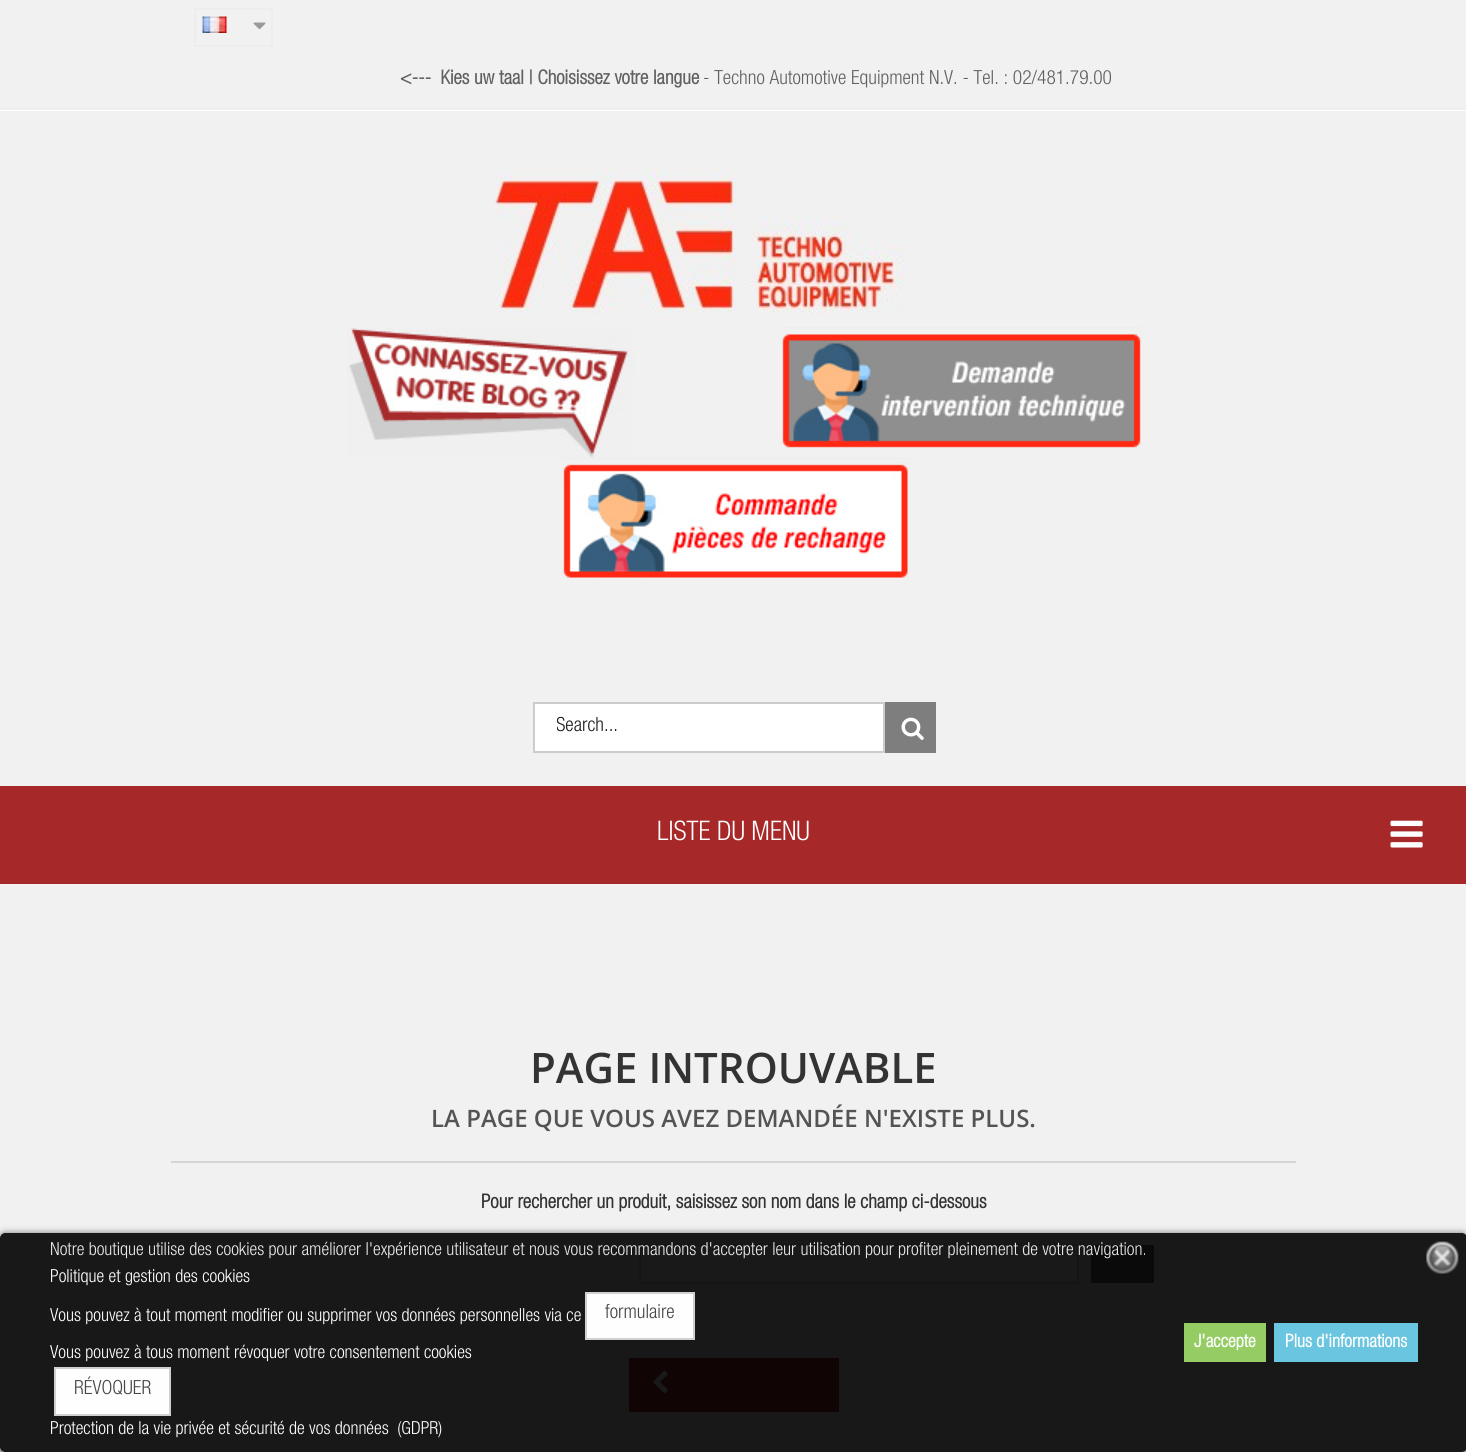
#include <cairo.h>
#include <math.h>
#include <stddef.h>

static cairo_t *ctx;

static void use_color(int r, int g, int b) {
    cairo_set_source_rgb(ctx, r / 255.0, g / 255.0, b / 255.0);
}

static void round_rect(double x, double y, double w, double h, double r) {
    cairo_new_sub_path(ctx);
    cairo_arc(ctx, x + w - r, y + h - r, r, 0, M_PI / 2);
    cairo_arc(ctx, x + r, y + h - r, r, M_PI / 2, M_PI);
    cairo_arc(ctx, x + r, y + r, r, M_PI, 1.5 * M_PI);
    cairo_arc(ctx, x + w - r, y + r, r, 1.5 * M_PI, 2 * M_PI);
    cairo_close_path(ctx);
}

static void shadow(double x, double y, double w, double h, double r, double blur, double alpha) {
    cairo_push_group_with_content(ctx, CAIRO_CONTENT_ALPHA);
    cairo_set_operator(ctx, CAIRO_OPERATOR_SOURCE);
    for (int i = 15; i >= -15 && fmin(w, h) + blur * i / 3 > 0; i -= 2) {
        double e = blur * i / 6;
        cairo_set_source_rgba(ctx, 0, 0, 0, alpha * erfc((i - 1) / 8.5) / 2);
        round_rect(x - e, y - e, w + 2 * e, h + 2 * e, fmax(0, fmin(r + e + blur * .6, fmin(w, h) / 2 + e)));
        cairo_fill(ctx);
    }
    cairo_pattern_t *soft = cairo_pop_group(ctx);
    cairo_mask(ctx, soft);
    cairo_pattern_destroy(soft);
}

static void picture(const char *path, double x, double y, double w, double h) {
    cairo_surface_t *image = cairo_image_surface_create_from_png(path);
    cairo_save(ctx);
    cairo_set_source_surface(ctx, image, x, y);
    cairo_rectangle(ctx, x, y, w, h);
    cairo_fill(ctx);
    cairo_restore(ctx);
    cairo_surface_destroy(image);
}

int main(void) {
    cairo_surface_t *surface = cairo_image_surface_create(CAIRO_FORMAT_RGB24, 1466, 1452);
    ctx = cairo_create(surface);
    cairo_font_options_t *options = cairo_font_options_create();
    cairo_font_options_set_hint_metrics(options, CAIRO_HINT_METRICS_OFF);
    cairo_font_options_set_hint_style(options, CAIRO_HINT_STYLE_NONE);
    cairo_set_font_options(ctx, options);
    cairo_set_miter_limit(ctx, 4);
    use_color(241, 241, 241);
    cairo_paint(ctx);
    use_color(255, 255, 255);
    cairo_rectangle(ctx, 0, 110, 1466, 1);
    cairo_fill(ctx);
    use_color(238, 238, 238);
    cairo_rectangle(ctx, 0, 108, 1466, 2);
    cairo_fill(ctx);
    cairo_rectangle(ctx, 195, 9, 77, 37);
    use_color(237, 237, 237);
    cairo_stroke(ctx);
    picture("img1.png", 202, 16, 25, 17);
    picture("img2.png", 253, 22, 13, 8);
    cairo_select_font_face(ctx, "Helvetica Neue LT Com", CAIRO_FONT_SLANT_NORMAL, CAIRO_FONT_WEIGHT_BOLD);
    cairo_set_font_size(ctx, 19.5);
    use_color(98, 96, 96);
    cairo_move_to(ctx, 400, 84);
    cairo_show_text(ctx, "<---  Kies uw taal | Choisissez votre langue");
    cairo_select_font_face(ctx, "Helvetica Neue LT Com Light", CAIRO_FONT_SLANT_NORMAL, CAIRO_FONT_WEIGHT_NORMAL);
    cairo_move_to(ctx, 703, 84);
    cairo_show_text(ctx, "- Techno Automotive Equipment N.V. - Tel. : 02/481.79.00");
    picture("img3.png", 494, 169, 410, 145);
    picture("img4.png", 347, 327, 287, 131);
    picture("img5.png", 779, 327, 362, 121);
    picture("img6.png", 561, 457, 349, 121);
    use_color(255, 255, 255);
    cairo_rectangle(ctx, 534, 703, 350, 49);
    cairo_fill_preserve(ctx);
    use_color(204, 204, 204);
    cairo_stroke(ctx);
    cairo_save(ctx);
    cairo_rectangle(ctx, 557, 716, 327, 24);
    cairo_clip(ctx);
    use_color(30, 30, 33);
    cairo_move_to(ctx, 556, 731);
    cairo_show_text(ctx, "Search...");
    cairo_restore(ctx);
    use_color(126, 126, 126);
    cairo_rectangle(ctx, 885, 702, 51, 51);
    cairo_fill(ctx);
    picture("img7.png", 901, 717, 23, 23);
    use_color(251, 251, 251);
    cairo_rectangle(ctx, 640, 1245, 438, 38);
    cairo_fill_preserve(ctx);
    use_color(214, 212, 212);
    cairo_stroke(ctx);
    use_color(102, 102, 102);
    cairo_rectangle(ctx, 1091, 1245, 63, 38);
    cairo_fill(ctx);
    use_color(166, 40, 40);
    cairo_rectangle(ctx, 629, 1358, 210, 54);
    cairo_fill(ctx);
    picture("img10.png", 653, 1370, 15, 24);
    cairo_save(ctx);
    cairo_set_fill_rule(ctx, CAIRO_FILL_RULE_EVEN_ODD);
    cairo_new_path(ctx);
    cairo_move_to(ctx, 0, 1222);
    cairo_line_to(ctx, 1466, 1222);
    cairo_line_to(ctx, 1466, 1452);
    cairo_line_to(ctx, 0, 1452);
    cairo_close_path(ctx);
    cairo_move_to(ctx, 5, 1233);
    cairo_line_to(ctx, 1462, 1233);
    cairo_curve_to(ctx, 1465, 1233, 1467, 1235, 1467, 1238);
    cairo_line_to(ctx, 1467, 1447);
    cairo_curve_to(ctx, 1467, 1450, 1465, 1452, 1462, 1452);
    cairo_line_to(ctx, 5, 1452);
    cairo_curve_to(ctx, 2, 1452, 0, 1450, 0, 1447);
    cairo_line_to(ctx, 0, 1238);
    cairo_curve_to(ctx, 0, 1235, 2, 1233, 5, 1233);
    cairo_close_path(ctx);
    cairo_clip(ctx);
    use_color(24, 24, 24);
    shadow(0, 1235, 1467, 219, 5, 4, 1);
    cairo_restore(ctx);
    cairo_set_source_rgba(ctx, 0, 0, 0, 0.9);
    round_rect(1, 1234, 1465, 217, 4);
    cairo_fill_preserve(ctx);
    use_color(24, 24, 24);
    cairo_stroke(ctx);
    cairo_set_font_size(ctx, 18);
    use_color(232, 232, 232);
    cairo_move_to(ctx, 50, 1255);
    cairo_show_text(ctx, "Notre boutique utilise des cookies pour améliorer l'expérience utilisateur et nous vous recommandons d'accepter leur utilisation pour profiter pleinement de votre navigation.");
    use_color(255, 255, 255);
    cairo_move_to(ctx, 50, 1282);
    cairo_show_text(ctx, "Politique et gestion des cookies");
    cairo_move_to(ctx, 50, 1321);
    cairo_show_text(ctx, "Vous pouvez à tout moment modifier ou supprimer vos données personnelles via ce");
    use_color(254, 254, 254);
    cairo_rectangle(ctx, 586, 1293, 108, 46);
    cairo_fill_preserve(ctx);
    use_color(208, 208, 208);
    cairo_stroke(ctx);
    cairo_set_font_size(ctx, 19.5);
    use_color(70, 70, 70);
    cairo_move_to(ctx, 605, 1318);
    cairo_show_text(ctx, "formulaire");
    cairo_set_font_size(ctx, 18);
    use_color(255, 255, 255);
    cairo_move_to(ctx, 50, 1358);
    cairo_show_text(ctx, "Vous pouvez à tous moment révoquer votre consentement cookies");
    use_color(254, 254, 254);
    cairo_rectangle(ctx, 55, 1368, 115, 47);
    cairo_fill_preserve(ctx);
    use_color(208, 208, 208);
    cairo_stroke(ctx);
    cairo_set_font_size(ctx, 19.5);
    use_color(70, 70, 70);
    cairo_move_to(ctx, 74, 1394);
    cairo_show_text(ctx, "RÉVOQUER");
    cairo_set_font_size(ctx, 18);
    use_color(255, 255, 255);
    cairo_move_to(ctx, 50, 1434);
    cairo_show_text(ctx, "Protection de la vie privée et sécurité de vos données  (GDPR)");
    use_color(149, 205, 100);
    cairo_rectangle(ctx, 1184, 1323, 82, 39);
    cairo_fill(ctx);
    cairo_select_font_face(ctx, "Helvetica Neue LT Com", CAIRO_FONT_SLANT_NORMAL, CAIRO_FONT_WEIGHT_BOLD);
    use_color(255, 255, 255);
    cairo_move_to(ctx, 1194, 1347);
    cairo_show_text(ctx, "J'accepte");
    use_color(106, 197, 224);
    cairo_rectangle(ctx, 1274, 1323, 144, 39);
    cairo_fill(ctx);
    use_color(255, 255, 255);
    cairo_move_to(ctx, 1285, 1347);
    cairo_show_text(ctx, "Plus d'informations");
    picture("img8.png", 1426, 1241, 33, 33);
    use_color(166, 40, 40);
    cairo_rectangle(ctx, 0, 786, 1466, 98);
    cairo_fill(ctx);
    cairo_select_font_face(ctx, "Helvetica Neue LT Com Light", CAIRO_FONT_SLANT_NORMAL, CAIRO_FONT_WEIGHT_NORMAL);
    cairo_set_font_size(ctx, 27);
    use_color(255, 255, 255);
    cairo_move_to(ctx, 657, 840);
    cairo_show_text(ctx, "LISTE DU MENU");
    picture("img9.png", 1390, 820, 33, 28);
    cairo_select_font_face(ctx, "Open Sans SemiBold", CAIRO_FONT_SLANT_NORMAL, CAIRO_FONT_WEIGHT_NORMAL);
    cairo_set_font_size(ctx, 42);
    use_color(51, 51, 51);
    cairo_move_to(ctx, 530, 1083);
    cairo_show_text(ctx, "PAGE INTROUVABLE");
    use_color(214, 212, 212);
    cairo_rectangle(ctx, 171, 1161, 1125, 2);
    cairo_fill(ctx);
    cairo_set_font_size(ctx, 24);
    use_color(85, 84, 84);
    cairo_move_to(ctx, 431, 1127);
    cairo_show_text(ctx, "LA PAGE QUE VOUS AVEZ DEMANDÉE N'EXISTE PLUS.");
    cairo_select_font_face(ctx, "Helvetica Neue LT Com", CAIRO_FONT_SLANT_NORMAL, CAIRO_FONT_WEIGHT_BOLD);
    cairo_set_font_size(ctx, 19.5);
    use_color(51, 51, 51);
    cairo_move_to(ctx, 481, 1208);
    cairo_show_text(ctx, "Pour rechercher un produit, saisissez son nom dans le champ ci-dessous");
    cairo_surface_write_to_png(surface, "result.png");
    cairo_font_options_destroy(options);
    cairo_destroy(ctx);
    cairo_surface_destroy(surface);
    return 0;
}
